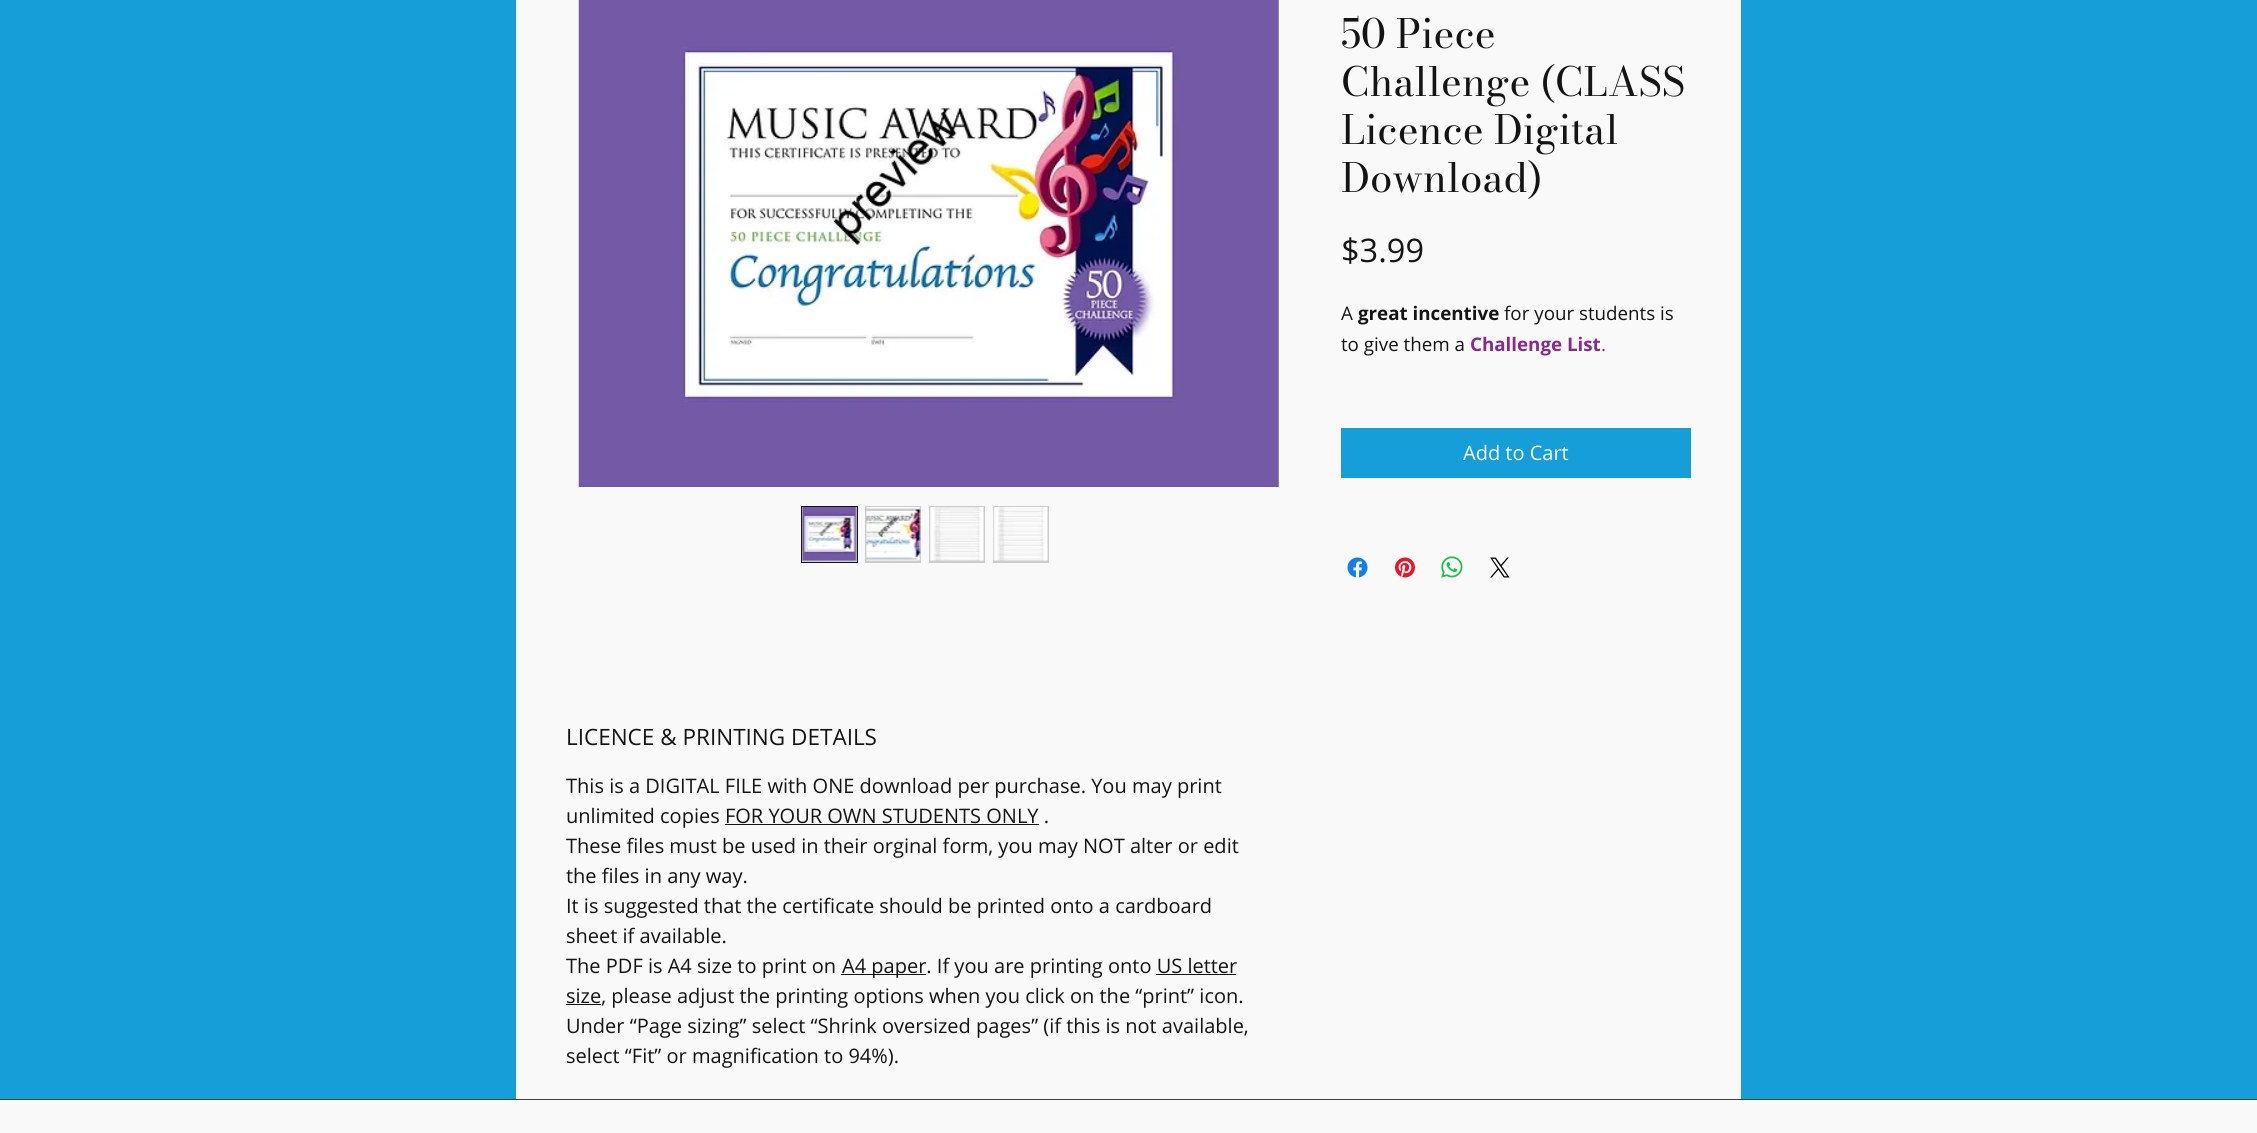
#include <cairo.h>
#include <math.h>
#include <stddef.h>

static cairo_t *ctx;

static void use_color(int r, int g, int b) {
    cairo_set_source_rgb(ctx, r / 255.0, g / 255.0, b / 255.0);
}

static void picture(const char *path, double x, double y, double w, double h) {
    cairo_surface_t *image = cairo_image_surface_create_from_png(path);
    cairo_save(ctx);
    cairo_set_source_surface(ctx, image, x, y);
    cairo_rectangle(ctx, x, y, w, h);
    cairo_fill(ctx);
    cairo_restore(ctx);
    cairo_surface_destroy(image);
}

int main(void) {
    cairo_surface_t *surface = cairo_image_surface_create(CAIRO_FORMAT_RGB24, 2257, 1133);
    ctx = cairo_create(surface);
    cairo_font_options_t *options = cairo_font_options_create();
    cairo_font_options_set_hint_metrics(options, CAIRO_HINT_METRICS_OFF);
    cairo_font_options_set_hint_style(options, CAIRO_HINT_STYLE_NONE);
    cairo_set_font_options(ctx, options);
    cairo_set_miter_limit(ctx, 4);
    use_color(21, 158, 216);
    cairo_paint(ctx);
    use_color(249, 249, 249);
    cairo_rectangle(ctx, 516, 0, 1225, 1099);
    cairo_fill(ctx);
    picture("img1.png", 578, 0, 701, 487);
    use_color(205, 204, 204);
    cairo_rectangle(ctx, 801.5, 506.5, 56, 56);
    cairo_fill_preserve(ctx);
    use_color(20, 20, 20);
    cairo_set_line_width(ctx, 1);
    cairo_stroke(ctx);
    picture("img2.png", 802, 507, 55, 54);
    use_color(205, 204, 204);
    cairo_rectangle(ctx, 865, 506, 56, 57);
    cairo_fill(ctx);
    picture("img3.png", 866, 507, 55, 54);
    cairo_rectangle(ctx, 929, 506, 56, 57);
    cairo_fill(ctx);
    picture("img4.png", 929, 507, 55, 54);
    cairo_rectangle(ctx, 993, 506, 56, 57);
    cairo_fill(ctx);
    picture("img5.png", 993, 507, 55, 54);
    cairo_select_font_face(ctx, "Bodoni Moda", CAIRO_FONT_SLANT_NORMAL, CAIRO_FONT_WEIGHT_NORMAL);
    cairo_set_font_size(ctx, 40);
    use_color(20, 20, 20);
    cairo_move_to(ctx, 1341, 48);
    cairo_show_text(ctx, "50 Piece");
    cairo_move_to(ctx, 1341, 96);
    cairo_show_text(ctx, "Challenge (CLASS");
    cairo_move_to(ctx, 1341, 144);
    cairo_show_text(ctx, "Licence Digital");
    cairo_move_to(ctx, 1341, 192);
    cairo_show_text(ctx, "Download)");
    cairo_select_font_face(ctx, "Open Sans", CAIRO_FONT_SLANT_NORMAL, CAIRO_FONT_WEIGHT_NORMAL);
    cairo_set_font_size(ctx, 32.5);
    cairo_move_to(ctx, 1341, 262);
    cairo_show_text(ctx, "$3.99");
    cairo_set_font_size(ctx, 18.75);
    cairo_move_to(ctx, 1341, 320);
    cairo_show_text(ctx, "A");
    cairo_select_font_face(ctx, "Open Sans", CAIRO_FONT_SLANT_NORMAL, CAIRO_FONT_WEIGHT_BOLD);
    cairo_move_to(ctx, 1358, 320);
    cairo_show_text(ctx, "great incentive");
    cairo_select_font_face(ctx, "Open Sans", CAIRO_FONT_SLANT_NORMAL, CAIRO_FONT_WEIGHT_NORMAL);
    cairo_move_to(ctx, 1504, 320);
    cairo_show_text(ctx, "for your students is");
    cairo_move_to(ctx, 1341, 351);
    cairo_show_text(ctx, "to give them a");
    cairo_select_font_face(ctx, "Open Sans", CAIRO_FONT_SLANT_NORMAL, CAIRO_FONT_WEIGHT_BOLD);
    use_color(137, 41, 141);
    cairo_move_to(ctx, 1470, 351);
    cairo_show_text(ctx, "Challenge List");
    cairo_select_font_face(ctx, "Open Sans", CAIRO_FONT_SLANT_NORMAL, CAIRO_FONT_WEIGHT_NORMAL);
    cairo_move_to(ctx, 1601, 351);
    cairo_show_text(ctx, ".");
    use_color(21, 158, 216);
    cairo_rectangle(ctx, 1341, 428, 350, 50);
    cairo_fill(ctx);
    cairo_set_font_size(ctx, 20);
    use_color(249, 249, 249);
    cairo_move_to(ctx, 1463, 460);
    cairo_show_text(ctx, "Add to Cart");
    picture("img6.png", 1347, 557, 21, 21);
    picture("img7.png", 1395, 557, 20, 21);
    picture("img8.png", 1441, 556, 22, 22);
    picture("img9.png", 1490, 557, 20, 21);
    cairo_set_font_size(ctx, 22.5);
    use_color(20, 20, 20);
    cairo_move_to(ctx, 566, 745);
    cairo_show_text(ctx, "LICENCE & PRINTING DETAILS");
    cairo_set_font_size(ctx, 20);
    cairo_move_to(ctx, 566, 793);
    cairo_show_text(ctx, "This is a DIGITAL FILE with ONE download per purchase. You may print");
    cairo_move_to(ctx, 566, 823);
    cairo_show_text(ctx, "unlimited copies FOR YOUR OWN STUDENTS ONLY .");
    cairo_rectangle(ctx, 725, 824, 314, 1);
    cairo_fill(ctx);
    cairo_move_to(ctx, 566, 853);
    cairo_show_text(ctx, "These files must be used in their orginal form, you may NOT alter or edit");
    cairo_move_to(ctx, 566, 883);
    cairo_show_text(ctx, "the files in any way.");
    cairo_move_to(ctx, 566, 913);
    cairo_show_text(ctx, "It is suggested that the certificate should be printed onto a cardboard");
    cairo_move_to(ctx, 566, 943);
    cairo_show_text(ctx, "sheet if available.");
    cairo_move_to(ctx, 566, 973);
    cairo_show_text(ctx, "The PDF is A4 size to print on");
    cairo_rectangle(ctx, 841, 974, 85, 1);
    cairo_fill(ctx);
    cairo_move_to(ctx, 842, 973);
    cairo_show_text(ctx, "A4 paper. If you are printing onto US letter");
    cairo_rectangle(ctx, 566, 1004, 35, 1);
    cairo_fill(ctx);
    cairo_move_to(ctx, 566, 1003);
    cairo_show_text(ctx, "size, please adjust the printing options when you click on the “print” icon.");
    cairo_rectangle(ctx, 1156, 974, 80, 1);
    cairo_fill(ctx);
    cairo_move_to(ctx, 566, 1033);
    cairo_show_text(ctx, "Under “Page sizing” select “Shrink oversized pages” (if this is not available,");
    cairo_move_to(ctx, 566, 1063);
    cairo_show_text(ctx, "select “Fit” or magnification to 94%).");
    use_color(249, 249, 249);
    cairo_rectangle(ctx, 0, 1100, 2257, 33);
    cairo_fill(ctx);
    use_color(66, 66, 66);
    cairo_rectangle(ctx, 0, 1099, 2257, 1);
    cairo_fill(ctx);
    cairo_surface_write_to_png(surface, "result.png");
    cairo_font_options_destroy(options);
    cairo_destroy(ctx);
    cairo_surface_destroy(surface);
    return 0;
}
